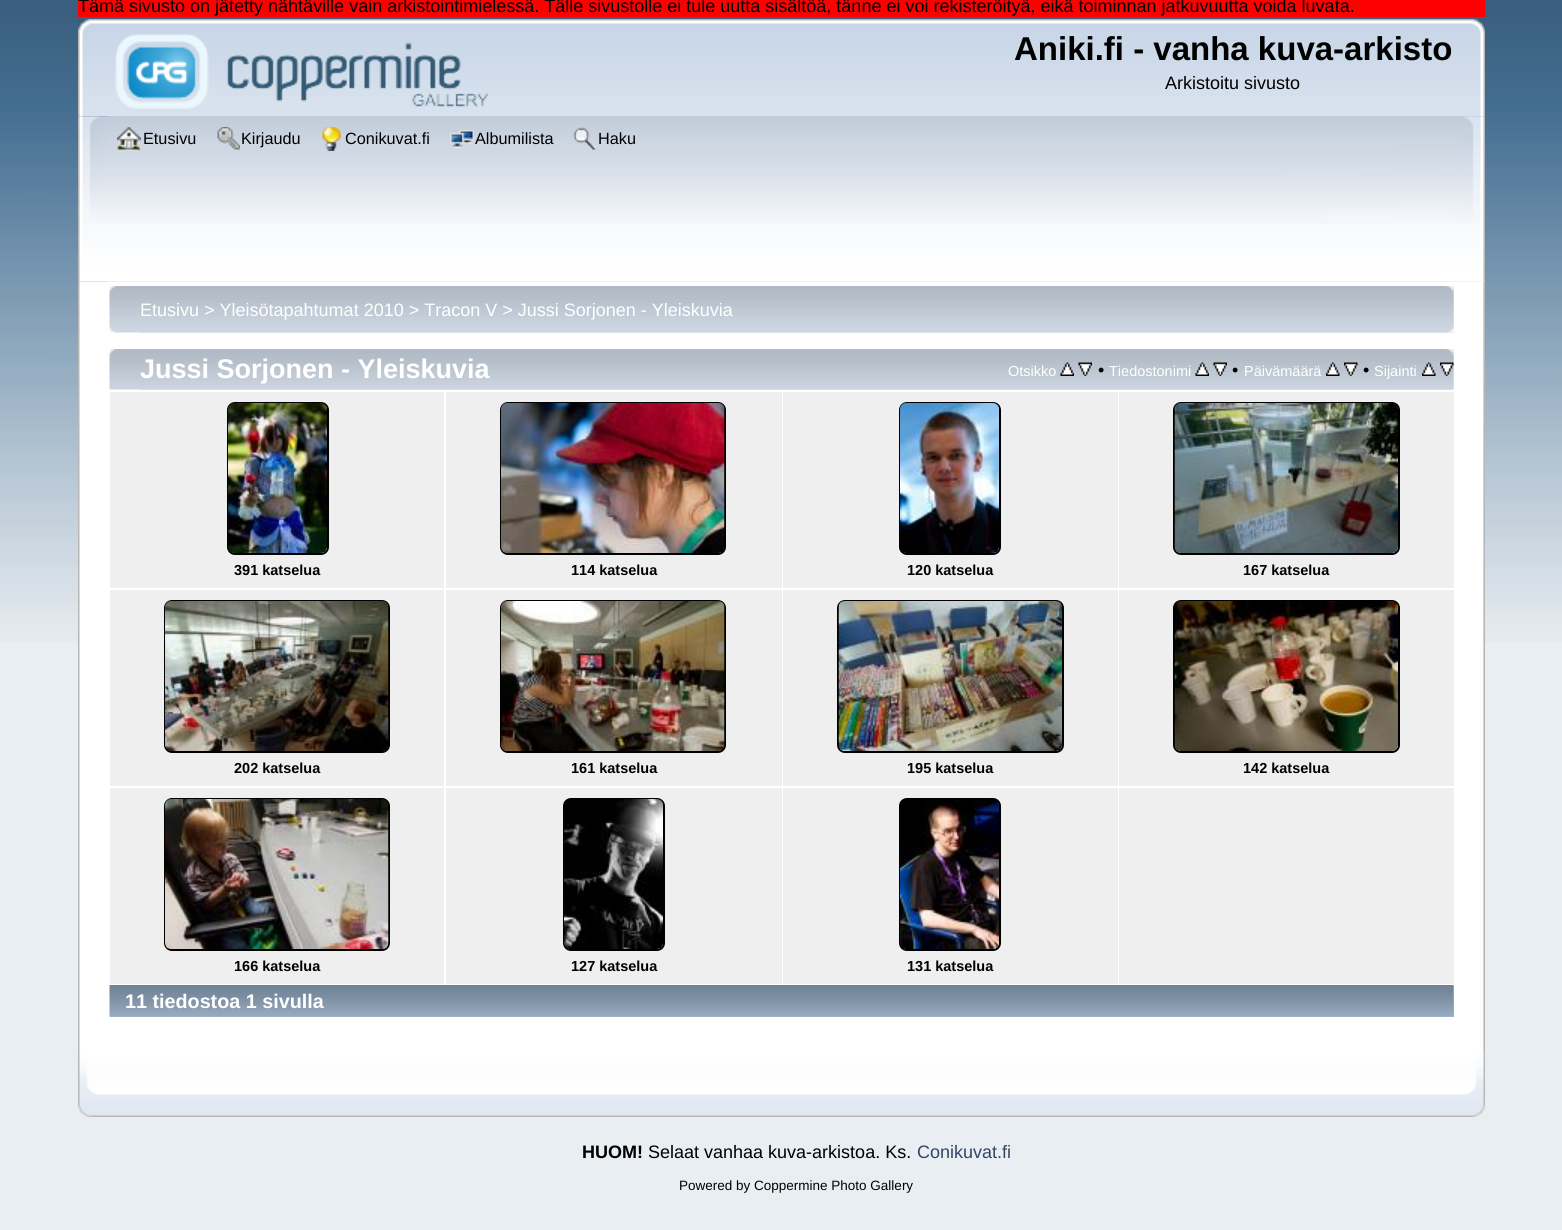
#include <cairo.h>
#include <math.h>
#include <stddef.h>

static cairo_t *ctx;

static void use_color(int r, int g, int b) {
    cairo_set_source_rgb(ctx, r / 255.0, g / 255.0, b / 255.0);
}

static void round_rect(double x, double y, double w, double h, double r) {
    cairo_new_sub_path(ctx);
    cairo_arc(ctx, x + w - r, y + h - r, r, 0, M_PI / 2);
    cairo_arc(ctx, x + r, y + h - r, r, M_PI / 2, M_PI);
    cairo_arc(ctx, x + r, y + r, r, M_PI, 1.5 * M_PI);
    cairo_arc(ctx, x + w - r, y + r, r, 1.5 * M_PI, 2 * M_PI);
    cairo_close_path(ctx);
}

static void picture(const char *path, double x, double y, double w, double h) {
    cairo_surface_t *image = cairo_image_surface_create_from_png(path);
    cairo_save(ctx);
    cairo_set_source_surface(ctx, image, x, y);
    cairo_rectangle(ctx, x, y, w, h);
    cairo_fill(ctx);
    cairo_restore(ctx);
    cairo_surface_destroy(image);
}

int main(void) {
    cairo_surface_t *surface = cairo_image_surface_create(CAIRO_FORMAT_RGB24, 1562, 1230);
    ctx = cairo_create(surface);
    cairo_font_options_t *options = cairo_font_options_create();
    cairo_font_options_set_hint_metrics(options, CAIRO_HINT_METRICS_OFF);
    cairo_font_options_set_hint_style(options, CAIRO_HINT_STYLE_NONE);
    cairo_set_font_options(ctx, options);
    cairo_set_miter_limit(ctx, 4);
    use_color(233, 238, 242);
    cairo_paint(ctx);
    picture("img1.png", 0, 0, 1562, 643);
    use_color(255, 0, 0);
    cairo_rectangle(ctx, 78, 0, 1407, 17);
    cairo_fill(ctx);
    cairo_select_font_face(ctx, "Liberation Sans", CAIRO_FONT_SLANT_NORMAL, CAIRO_FONT_WEIGHT_NORMAL);
    cairo_set_font_size(ctx, 18);
    use_color(0, 0, 0);
    cairo_move_to(ctx, 78, 12);
    cairo_show_text(ctx, "Tämä sivusto on jätetty nähtäville vain arkistointimielessä. Tälle sivustolle ei tule uutta sisältöä, tänne ei voi rekisteröityä, eikä toiminnan jatkuvuutta voida luvata.");
    picture("img2.png", 78, 19, 1407, 98);
    picture("img3.png", 108, 19, 1377, 98);
    picture("img4.png", 115, 34, 373, 75);
    cairo_select_font_face(ctx, "Liberation Sans", CAIRO_FONT_SLANT_NORMAL, CAIRO_FONT_WEIGHT_BOLD);
    cairo_set_font_size(ctx, 33);
    cairo_move_to(ctx, 1014, 60);
    cairo_show_text(ctx, "Aniki.fi - vanha kuva-arkisto");
    cairo_select_font_face(ctx, "Liberation Sans", CAIRO_FONT_SLANT_NORMAL, CAIRO_FONT_WEIGHT_NORMAL);
    cairo_set_font_size(ctx, 18);
    cairo_move_to(ctx, 1165, 89);
    cairo_show_text(ctx, "Arkistoitu sivusto");
    picture("img5.png", 78, 116, 1407, 166);
    picture("img6.png", 108, 116, 1377, 166);
    picture("img7.png", 117, 127, 24, 24);
    cairo_set_font_size(ctx, 16.25);
    cairo_move_to(ctx, 143, 144);
    cairo_show_text(ctx, "Etusivu");
    picture("img8.png", 217, 127, 23, 23);
    cairo_move_to(ctx, 241, 144);
    cairo_show_text(ctx, "Kirjaudu");
    picture("img9.png", 322, 127, 19, 24);
    cairo_move_to(ctx, 345, 144);
    cairo_show_text(ctx, "Conikuvat.fi");
    picture("img10.png", 450, 130, 24, 19);
    cairo_move_to(ctx, 475, 144);
    cairo_show_text(ctx, "Albumilista");
    picture("img11.png", 573, 127, 24, 23);
    cairo_move_to(ctx, 598, 144);
    cairo_show_text(ctx, "Haku");
    picture("img12.png", 78, 281, 1407, 770);
    picture("img13.png", 1483, 281, 2, 770);
    picture("img14.png", 109, 286, 1345, 47);
    picture("img15.png", 139, 286, 1315, 47);
    cairo_set_font_size(ctx, 18);
    use_color(255, 255, 255);
    cairo_move_to(ctx, 140, 316);
    cairo_show_text(ctx, "Etusivu > Yleisötapahtumat 2010 > Tracon V > Jussi Sorjonen - Yleiskuvia");
    picture("img16.png", 109, 349, 1345, 41);
    picture("img17.png", 139, 349, 1315, 41);
    cairo_select_font_face(ctx, "Liberation Sans", CAIRO_FONT_SLANT_NORMAL, CAIRO_FONT_WEIGHT_BOLD);
    cairo_set_font_size(ctx, 27);
    cairo_move_to(ctx, 140, 378);
    cairo_show_text(ctx, "Jussi Sorjonen - Yleiskuvia");
    cairo_select_font_face(ctx, "Liberation Sans", CAIRO_FONT_SLANT_NORMAL, CAIRO_FONT_WEIGHT_NORMAL);
    cairo_set_font_size(ctx, 14.5);
    cairo_move_to(ctx, 1008, 376);
    cairo_show_text(ctx, "Otsikko");
    picture("img18.png", 1060, 362, 14, 14);
    picture("img19.png", 1078, 362, 14, 14);
    cairo_set_font_size(ctx, 18);
    use_color(0, 0, 0);
    cairo_move_to(ctx, 1098, 376);
    cairo_show_text(ctx, "•");
    cairo_set_font_size(ctx, 14.5);
    use_color(255, 255, 255);
    cairo_move_to(ctx, 1109, 376);
    cairo_show_text(ctx, "Tiedostonimi");
    picture("img18.png", 1195, 362, 14, 14);
    picture("img19.png", 1213, 362, 14, 14);
    cairo_set_font_size(ctx, 18);
    use_color(0, 0, 0);
    cairo_move_to(ctx, 1232, 376);
    cairo_show_text(ctx, "•");
    cairo_set_font_size(ctx, 14.5);
    use_color(255, 255, 255);
    cairo_move_to(ctx, 1244, 376);
    cairo_show_text(ctx, "Päivämäärä");
    picture("img20.png", 1326, 362, 14, 14);
    picture("img21.png", 1344, 362, 14, 14);
    cairo_set_font_size(ctx, 18);
    use_color(0, 0, 0);
    cairo_move_to(ctx, 1363, 376);
    cairo_show_text(ctx, "•");
    cairo_set_font_size(ctx, 14.5);
    use_color(255, 255, 255);
    cairo_move_to(ctx, 1374, 376);
    cairo_show_text(ctx, "Sijainti");
    picture("img22.png", 1422, 362, 14, 14);
    picture("img23.png", 1440, 362, 14, 14);
    use_color(239, 239, 239);
    cairo_rectangle(ctx, 110, 392, 334, 196);
    cairo_fill(ctx);
    round_rect(228, 403, 100, 151, 7);
    use_color(0, 0, 0);
    cairo_stroke(ctx);
    picture("img24.png", 228, 403, 99, 150);
    cairo_select_font_face(ctx, "Liberation Sans", CAIRO_FONT_SLANT_NORMAL, CAIRO_FONT_WEIGHT_BOLD);
    cairo_move_to(ctx, 234, 575);
    cairo_show_text(ctx, "391 katselua");
    use_color(239, 239, 239);
    cairo_rectangle(ctx, 446, 392, 336, 196);
    cairo_fill(ctx);
    round_rect(501, 403, 224, 151, 7);
    use_color(0, 0, 0);
    cairo_stroke(ctx);
    picture("img25.png", 501, 403, 224, 150);
    cairo_move_to(ctx, 571, 575);
    cairo_show_text(ctx, "114 katselua");
    use_color(239, 239, 239);
    cairo_rectangle(ctx, 783, 392, 335, 196);
    cairo_fill(ctx);
    round_rect(900, 403, 100, 151, 7);
    use_color(0, 0, 0);
    cairo_stroke(ctx);
    picture("img26.png", 900, 403, 99, 150);
    cairo_move_to(ctx, 907, 575);
    cairo_show_text(ctx, "120 katselua");
    use_color(239, 239, 239);
    cairo_rectangle(ctx, 1119, 392, 335, 196);
    cairo_fill(ctx);
    round_rect(1174, 403, 225, 151, 7);
    use_color(0, 0, 0);
    cairo_stroke(ctx);
    picture("img27.png", 1174, 403, 224, 150);
    cairo_move_to(ctx, 1243, 575);
    cairo_show_text(ctx, "167 katselua");
    use_color(239, 239, 239);
    cairo_rectangle(ctx, 110, 590, 334, 196);
    cairo_fill(ctx);
    round_rect(165, 601, 224, 151, 7);
    use_color(0, 0, 0);
    cairo_stroke(ctx);
    picture("img28.png", 165, 601, 224, 150);
    cairo_move_to(ctx, 234, 773);
    cairo_show_text(ctx, "202 katselua");
    use_color(239, 239, 239);
    cairo_rectangle(ctx, 446, 590, 336, 196);
    cairo_fill(ctx);
    round_rect(501, 601, 224, 151, 7);
    use_color(0, 0, 0);
    cairo_stroke(ctx);
    picture("img29.png", 501, 601, 224, 150);
    cairo_move_to(ctx, 571, 773);
    cairo_show_text(ctx, "161 katselua");
    use_color(239, 239, 239);
    cairo_rectangle(ctx, 783, 590, 335, 196);
    cairo_fill(ctx);
    round_rect(838, 601, 225, 151, 7);
    use_color(0, 0, 0);
    cairo_stroke(ctx);
    picture("img30.png", 838, 601, 224, 150);
    cairo_move_to(ctx, 907, 773);
    cairo_show_text(ctx, "195 katselua");
    use_color(239, 239, 239);
    cairo_rectangle(ctx, 1119, 590, 335, 196);
    cairo_fill(ctx);
    round_rect(1174, 601, 225, 151, 7);
    use_color(0, 0, 0);
    cairo_stroke(ctx);
    picture("img31.png", 1174, 601, 224, 150);
    cairo_move_to(ctx, 1243, 773);
    cairo_show_text(ctx, "142 katselua");
    use_color(239, 239, 239);
    cairo_rectangle(ctx, 110, 788, 334, 196);
    cairo_fill(ctx);
    round_rect(165, 799, 224, 151, 7);
    use_color(0, 0, 0);
    cairo_stroke(ctx);
    picture("img32.png", 165, 799, 224, 150);
    cairo_move_to(ctx, 234, 971);
    cairo_show_text(ctx, "166 katselua");
    use_color(239, 239, 239);
    cairo_rectangle(ctx, 446, 788, 336, 196);
    cairo_fill(ctx);
    round_rect(564, 799, 100, 151, 7);
    use_color(0, 0, 0);
    cairo_stroke(ctx);
    picture("img33.png", 564, 799, 99, 150);
    cairo_move_to(ctx, 571, 971);
    cairo_show_text(ctx, "127 katselua");
    use_color(239, 239, 239);
    cairo_rectangle(ctx, 783, 788, 335, 196);
    cairo_fill(ctx);
    round_rect(900, 799, 100, 151, 7);
    use_color(0, 0, 0);
    cairo_stroke(ctx);
    picture("img34.png", 900, 799, 99, 150);
    cairo_move_to(ctx, 907, 971);
    cairo_show_text(ctx, "131 katselua");
    use_color(239, 239, 239);
    cairo_rectangle(ctx, 1119, 788, 335, 196);
    cairo_fill(ctx);
    use_color(168, 184, 204);
    cairo_rectangle(ctx, 110, 986, 1344, 31);
    cairo_fill(ctx);
    picture("img35.png", 109, 985, 1345, 32);
    cairo_set_font_size(ctx, 19.75);
    use_color(255, 255, 255);
    cairo_move_to(ctx, 125, 1008);
    cairo_show_text(ctx, "11 tiedostoa 1 sivulla");
    picture("img36.png", 78, 1051, 1388, 66);
    picture("img37.png", 1466, 1051, 19, 66);
    cairo_set_font_size(ctx, 18);
    use_color(0, 0, 0);
    cairo_move_to(ctx, 582, 1158);
    cairo_show_text(ctx, "HUOM!");
    cairo_select_font_face(ctx, "Liberation Sans", CAIRO_FONT_SLANT_NORMAL, CAIRO_FONT_WEIGHT_NORMAL);
    cairo_move_to(ctx, 648, 1158);
    cairo_show_text(ctx, "Selaat vanhaa kuva-arkistoa. Ks.");
    use_color(51, 68, 102);
    cairo_move_to(ctx, 917, 1158);
    cairo_show_text(ctx, "Conikuvat.fi");
    cairo_set_font_size(ctx, 13.5);
    use_color(0, 0, 0);
    cairo_move_to(ctx, 679, 1190);
    cairo_show_text(ctx, "Powered by Coppermine Photo Gallery");
    cairo_surface_write_to_png(surface, "result.png");
    cairo_font_options_destroy(options);
    cairo_destroy(ctx);
    cairo_surface_destroy(surface);
    return 0;
}
